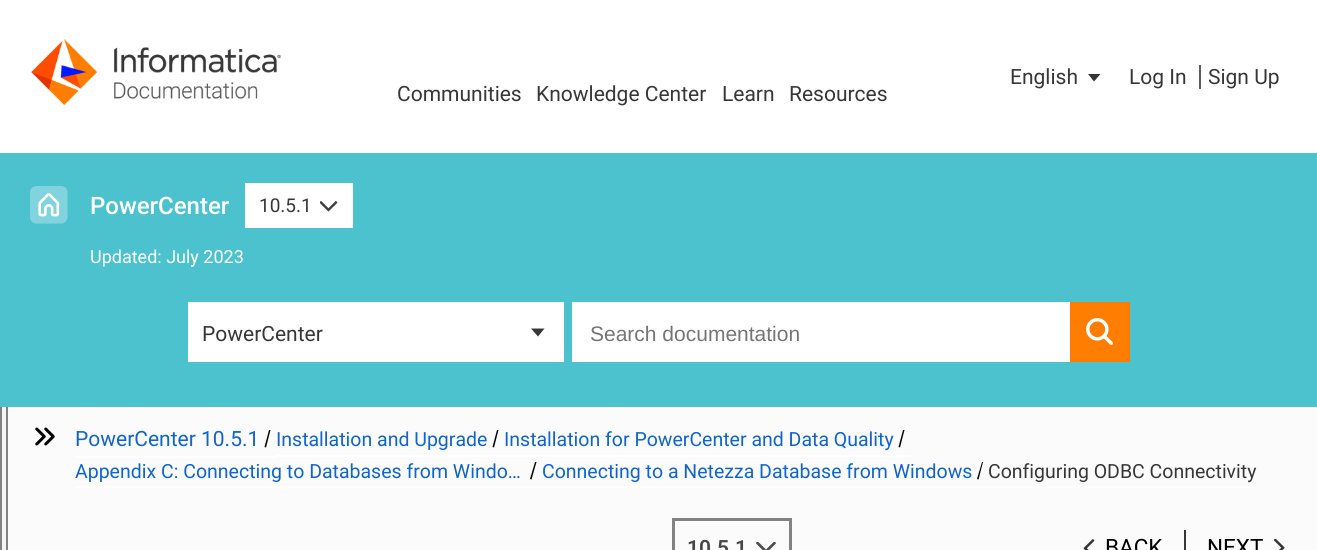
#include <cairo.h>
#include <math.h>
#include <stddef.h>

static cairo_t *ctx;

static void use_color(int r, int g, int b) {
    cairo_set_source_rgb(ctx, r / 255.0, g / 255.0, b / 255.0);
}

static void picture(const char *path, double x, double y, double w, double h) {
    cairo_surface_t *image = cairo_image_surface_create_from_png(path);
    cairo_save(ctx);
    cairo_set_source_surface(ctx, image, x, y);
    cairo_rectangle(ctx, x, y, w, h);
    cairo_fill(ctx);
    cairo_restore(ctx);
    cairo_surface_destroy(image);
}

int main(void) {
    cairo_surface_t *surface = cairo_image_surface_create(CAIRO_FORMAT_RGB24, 1317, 550);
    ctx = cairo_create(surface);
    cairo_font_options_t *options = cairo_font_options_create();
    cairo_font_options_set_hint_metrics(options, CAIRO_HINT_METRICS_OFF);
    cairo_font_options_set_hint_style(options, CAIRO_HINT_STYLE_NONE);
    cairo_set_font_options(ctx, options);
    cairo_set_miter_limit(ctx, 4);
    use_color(255, 255, 255);
    cairo_paint(ctx);
    picture("img1.png", 31, 39, 250, 67);
    cairo_select_font_face(ctx, "Roboto", CAIRO_FONT_SLANT_NORMAL, CAIRO_FONT_WEIGHT_NORMAL);
    cairo_set_font_size(ctx, 21);
    use_color(55, 55, 55);
    cairo_move_to(ctx, 1010, 84);
    cairo_show_text(ctx, "English");
    cairo_new_path(ctx);
    cairo_move_to(ctx, 1100.5, 74);
    cairo_line_to(ctx, 1094, 81.5);
    cairo_line_to(ctx, 1088, 74);
    cairo_close_path(ctx);
    cairo_fill(ctx);
    cairo_move_to(ctx, 1129, 84);
    cairo_show_text(ctx, "Log In");
    use_color(93, 93, 93);
    cairo_rectangle(ctx, 1199, 65, 2, 24);
    cairo_fill(ctx);
    use_color(55, 55, 55);
    cairo_move_to(ctx, 1208, 84);
    cairo_show_text(ctx, "Sign Up");
    cairo_move_to(ctx, 397, 101);
    cairo_show_text(ctx, "Communities");
    cairo_move_to(ctx, 536, 101);
    cairo_show_text(ctx, "Knowledge Center");
    cairo_move_to(ctx, 722, 101);
    cairo_show_text(ctx, "Learn");
    cairo_move_to(ctx, 789, 101);
    cairo_show_text(ctx, "Resources");
    use_color(77, 194, 207);
    cairo_rectangle(ctx, 0, 153, 1317, 254);
    cairo_fill(ctx);
    picture("img2.png", 30, 186, 38, 38);
    cairo_select_font_face(ctx, "Roboto Medium", CAIRO_FONT_SLANT_NORMAL, CAIRO_FONT_WEIGHT_NORMAL);
    cairo_set_font_size(ctx, 24);
    use_color(255, 255, 255);
    cairo_move_to(ctx, 90, 214);
    cairo_show_text(ctx, "PowerCenter");
    cairo_rectangle(ctx, 245, 183, 108, 45);
    cairo_fill(ctx);
    cairo_select_font_face(ctx, "Roboto", CAIRO_FONT_SLANT_NORMAL, CAIRO_FONT_WEIGHT_NORMAL);
    cairo_set_font_size(ctx, 19);
    use_color(55, 55, 55);
    cairo_move_to(ctx, 259, 212);
    cairo_show_text(ctx, "10.5.1");
    picture("img3.png", 320, 201, 18, 11);
    cairo_set_font_size(ctx, 18);
    use_color(255, 255, 255);
    cairo_move_to(ctx, 90, 263);
    cairo_show_text(ctx, "Updated: July 2023");
    cairo_rectangle(ctx, 188, 302, 376, 60);
    cairo_fill(ctx);
    cairo_set_font_size(ctx, 21);
    use_color(55, 55, 55);
    cairo_move_to(ctx, 202, 341);
    cairo_show_text(ctx, "PowerCenter");
    cairo_new_path(ctx);
    cairo_move_to(ctx, 544.5, 328.5);
    cairo_line_to(ctx, 538, 336.5);
    cairo_line_to(ctx, 531, 328.5);
    cairo_close_path(ctx);
    cairo_fill(ctx);
    use_color(255, 255, 255);
    cairo_rectangle(ctx, 572, 302, 498, 60);
    cairo_fill(ctx);
    cairo_select_font_face(ctx, "Liberation Sans", CAIRO_FONT_SLANT_NORMAL, CAIRO_FONT_WEIGHT_NORMAL);
    use_color(117, 117, 117);
    cairo_move_to(ctx, 590, 341);
    cairo_show_text(ctx, "Search documentation");
    use_color(255, 125, 0);
    cairo_rectangle(ctx, 1070, 302, 60, 60);
    cairo_fill(ctx);
    picture("img4.png", 1086, 318, 27, 27);
    use_color(244, 244, 244);
    cairo_rectangle(ctx, 2, 407, 4, 143);
    cairo_fill(ctx);
    use_color(128, 128, 128);
    cairo_rectangle(ctx, 6, 407, 2, 143);
    cairo_fill(ctx);
    cairo_rectangle(ctx, 0, 407, 2, 143);
    cairo_fill(ctx);
    use_color(251, 251, 251);
    cairo_rectangle(ctx, 8, 407, 1309, 143);
    cairo_fill(ctx);
    picture("img5.png", 35, 427, 20, 19);
    use_color(255, 255, 255);
    cairo_rectangle(ctx, 75, 456, 201, 2);
    cairo_fill(ctx);
    cairo_select_font_face(ctx, "Roboto", CAIRO_FONT_SLANT_NORMAL, CAIRO_FONT_WEIGHT_NORMAL);
    use_color(15, 100, 205);
    cairo_move_to(ctx, 75, 446);
    cairo_show_text(ctx, "PowerCenter 10.5.1");
    use_color(0, 0, 0);
    cairo_new_path(ctx);
    cairo_move_to(ctx, 269, 430);
    cairo_line_to(ctx, 270.5, 430);
    cairo_line_to(ctx, 266, 447.5);
    cairo_line_to(ctx, 264.5, 447);
    cairo_close_path(ctx);
    cairo_fill(ctx);
    use_color(255, 255, 255);
    cairo_rectangle(ctx, 276, 455, 635, 2);
    cairo_fill(ctx);
    cairo_set_font_size(ctx, 19.5);
    use_color(15, 100, 205);
    cairo_move_to(ctx, 276, 446);
    cairo_show_text(ctx, "Installation and Upgrade");
    use_color(0, 0, 0);
    cairo_new_path(ctx);
    cairo_move_to(ctx, 497, 430);
    cairo_line_to(ctx, 498.5, 430);
    cairo_line_to(ctx, 494, 447.5);
    cairo_line_to(ctx, 492.5, 447);
    cairo_close_path(ctx);
    cairo_fill(ctx);
    use_color(15, 100, 205);
    cairo_move_to(ctx, 504, 446);
    cairo_show_text(ctx, "Installation for PowerCenter and Data Quality");
    use_color(0, 0, 0);
    cairo_new_path(ctx);
    cairo_move_to(ctx, 903, 430);
    cairo_line_to(ctx, 904.5, 430);
    cairo_line_to(ctx, 900, 447.5);
    cairo_line_to(ctx, 898.5, 447);
    cairo_close_path(ctx);
    cairo_fill(ctx);
    use_color(255, 255, 255);
    cairo_rectangle(ctx, 75, 486, 1182, 2);
    cairo_fill(ctx);
    use_color(15, 100, 205);
    cairo_move_to(ctx, 75, 478);
    cairo_show_text(ctx, "Appendix C: Connecting to Databases from Windo…");
    use_color(0, 0, 0);
    cairo_new_path(ctx);
    cairo_move_to(ctx, 535, 462);
    cairo_line_to(ctx, 536.5, 462);
    cairo_line_to(ctx, 531.5, 479.5);
    cairo_line_to(ctx, 530, 479);
    cairo_close_path(ctx);
    cairo_fill(ctx);
    use_color(15, 100, 205);
    cairo_move_to(ctx, 542, 478);
    cairo_show_text(ctx, "Connecting to a Netezza Database from Windows");
    use_color(0, 0, 0);
    cairo_new_path(ctx);
    cairo_move_to(ctx, 982, 462);
    cairo_line_to(ctx, 983, 462);
    cairo_line_to(ctx, 978.5, 479.5);
    cairo_line_to(ctx, 977, 479);
    cairo_close_path(ctx);
    cairo_fill(ctx);
    use_color(55, 55, 55);
    cairo_move_to(ctx, 988, 478);
    cairo_show_text(ctx, "Configuring ODBC Connectivity");
    cairo_rectangle(ctx, 673.5, 519.5, 117, 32);
    use_color(130, 130, 130);
    cairo_set_line_width(ctx, 3);
    cairo_stroke(ctx);
    cairo_select_font_face(ctx, "Roboto SemiBold", CAIRO_FONT_SLANT_NORMAL, CAIRO_FONT_WEIGHT_NORMAL);
    cairo_set_font_size(ctx, 21);
    use_color(72, 72, 72);
    cairo_move_to(ctx, 687, 555);
    cairo_show_text(ctx, "10.5.1");
    picture("img6.png", 756, 542, 20, 8);
    picture("img7.png", 1083, 539, 12, 11);
    cairo_select_font_face(ctx, "Roboto", CAIRO_FONT_SLANT_NORMAL, CAIRO_FONT_WEIGHT_NORMAL);
    cairo_set_font_size(ctx, 22.5);
    use_color(0, 0, 0);
    cairo_move_to(ctx, 1105, 555);
    cairo_show_text(ctx, "BACK");
    use_color(55, 55, 55);
    cairo_rectangle(ctx, 1184, 530, 2, 20);
    cairo_fill(ctx);
    use_color(0, 0, 0);
    cairo_move_to(ctx, 1207, 555);
    cairo_show_text(ctx, "NEXT");
    picture("img8.png", 1274, 539, 11, 11);
    cairo_surface_write_to_png(surface, "result.png");
    cairo_font_options_destroy(options);
    cairo_destroy(ctx);
    cairo_surface_destroy(surface);
    return 0;
}
